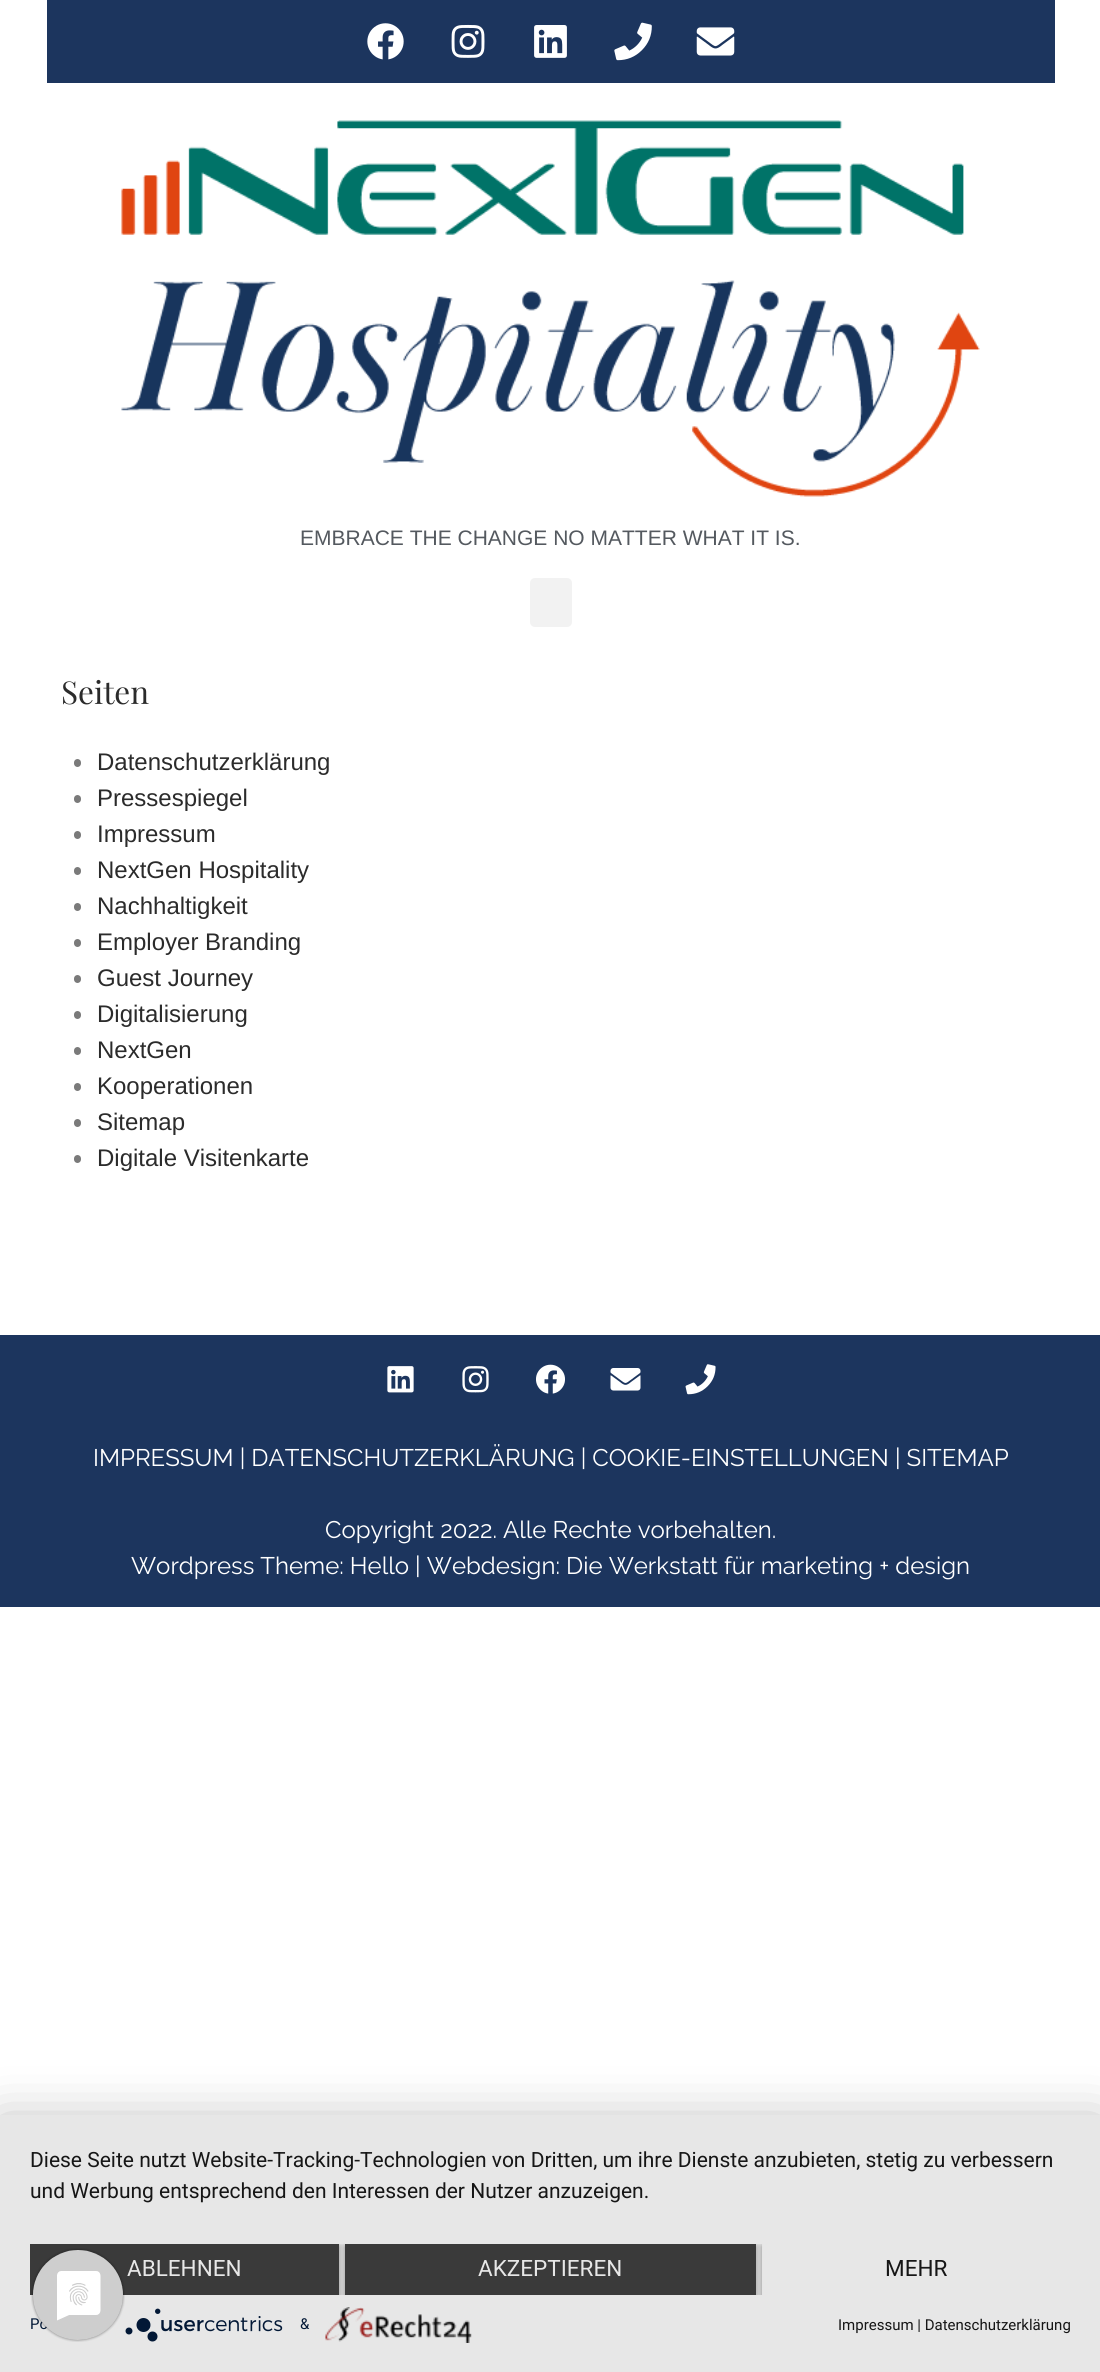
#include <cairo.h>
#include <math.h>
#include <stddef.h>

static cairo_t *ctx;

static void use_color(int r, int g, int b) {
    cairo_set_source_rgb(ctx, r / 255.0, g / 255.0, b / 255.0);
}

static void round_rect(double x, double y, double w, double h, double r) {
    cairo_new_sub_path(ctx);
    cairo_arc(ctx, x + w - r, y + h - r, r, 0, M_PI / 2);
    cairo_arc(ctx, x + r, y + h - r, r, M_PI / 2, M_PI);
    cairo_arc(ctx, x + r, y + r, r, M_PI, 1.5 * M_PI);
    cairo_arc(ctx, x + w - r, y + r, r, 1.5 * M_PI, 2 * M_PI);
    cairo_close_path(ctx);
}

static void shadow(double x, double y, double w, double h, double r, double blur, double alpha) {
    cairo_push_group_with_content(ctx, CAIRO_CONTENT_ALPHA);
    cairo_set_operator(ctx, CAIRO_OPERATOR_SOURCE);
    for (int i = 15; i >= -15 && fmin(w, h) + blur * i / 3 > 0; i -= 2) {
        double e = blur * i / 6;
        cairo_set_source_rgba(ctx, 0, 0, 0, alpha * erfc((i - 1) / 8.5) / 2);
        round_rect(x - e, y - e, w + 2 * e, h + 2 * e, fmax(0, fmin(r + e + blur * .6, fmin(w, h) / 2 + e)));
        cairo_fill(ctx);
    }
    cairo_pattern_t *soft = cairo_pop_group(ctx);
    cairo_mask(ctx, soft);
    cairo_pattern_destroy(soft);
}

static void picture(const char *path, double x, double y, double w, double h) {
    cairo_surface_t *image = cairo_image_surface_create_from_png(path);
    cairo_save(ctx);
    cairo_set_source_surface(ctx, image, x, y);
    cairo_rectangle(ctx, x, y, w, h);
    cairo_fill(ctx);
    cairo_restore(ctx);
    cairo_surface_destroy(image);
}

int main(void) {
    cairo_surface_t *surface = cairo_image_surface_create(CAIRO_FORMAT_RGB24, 1100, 2372);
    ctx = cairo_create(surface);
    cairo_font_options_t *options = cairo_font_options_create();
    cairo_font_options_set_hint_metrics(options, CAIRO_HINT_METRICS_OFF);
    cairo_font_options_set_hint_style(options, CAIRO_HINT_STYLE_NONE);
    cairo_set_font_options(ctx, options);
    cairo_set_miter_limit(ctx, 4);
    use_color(255, 255, 255);
    cairo_paint(ctx);
    use_color(28, 53, 94);
    cairo_rectangle(ctx, 47, 0, 1008, 83);
    cairo_fill(ctx);
    picture("img1.png", 367, 23, 37, 37);
    picture("img2.png", 451, 24, 34, 34);
    picture("img3.png", 534, 25, 33, 33);
    picture("img4.png", 614, 22, 38, 39);
    picture("img5.png", 696, 27, 39, 29);
    picture("img6.png", 121, 120, 859, 377);
    cairo_select_font_face(ctx, "Liberation Sans", CAIRO_FONT_SLANT_NORMAL, CAIRO_FONT_WEIGHT_NORMAL);
    cairo_set_font_size(ctx, 21);
    use_color(84, 89, 95);
    cairo_move_to(ctx, 300, 545);
    cairo_show_text(ctx, "EMBRACE THE CHANGE NO MATTER WHAT IT IS.");
    use_color(242, 242, 242);
    round_rect(530, 578, 42, 49, 5);
    cairo_fill(ctx);
    cairo_select_font_face(ctx, "Playfair Display", CAIRO_FONT_SLANT_NORMAL, CAIRO_FONT_WEIGHT_NORMAL);
    cairo_set_font_size(ctx, 31.5);
    use_color(43, 43, 43);
    cairo_move_to(ctx, 61, 704);
    cairo_show_text(ctx, "Seiten");
    use_color(122, 122, 122);
    round_rect(74, 759, 7, 8, 3.5);
    cairo_fill(ctx);
    cairo_select_font_face(ctx, "Liberation Sans", CAIRO_FONT_SLANT_NORMAL, CAIRO_FONT_WEIGHT_NORMAL);
    cairo_set_font_size(ctx, 24);
    use_color(43, 43, 43);
    cairo_move_to(ctx, 97, 770);
    cairo_show_text(ctx, "Datenschutzerklärung");
    use_color(122, 122, 122);
    round_rect(74, 795, 7, 8, 3.5);
    cairo_fill(ctx);
    use_color(43, 43, 43);
    cairo_move_to(ctx, 97, 806);
    cairo_show_text(ctx, "Pressespiegel");
    use_color(122, 122, 122);
    round_rect(74, 831, 7, 8, 3.5);
    cairo_fill(ctx);
    use_color(43, 43, 43);
    cairo_move_to(ctx, 97, 842);
    cairo_show_text(ctx, "Impressum");
    use_color(122, 122, 122);
    round_rect(74, 867, 7, 8, 3.5);
    cairo_fill(ctx);
    use_color(43, 43, 43);
    cairo_move_to(ctx, 97, 878);
    cairo_show_text(ctx, "NextGen Hospitality");
    use_color(122, 122, 122);
    round_rect(74, 903, 7, 8, 3.5);
    cairo_fill(ctx);
    use_color(43, 43, 43);
    cairo_move_to(ctx, 97, 914);
    cairo_show_text(ctx, "Nachhaltigkeit");
    use_color(122, 122, 122);
    round_rect(74, 939, 7, 8, 3.5);
    cairo_fill(ctx);
    use_color(43, 43, 43);
    cairo_move_to(ctx, 97, 950);
    cairo_show_text(ctx, "Employer Branding");
    use_color(122, 122, 122);
    round_rect(74, 975, 7, 8, 3.5);
    cairo_fill(ctx);
    use_color(43, 43, 43);
    cairo_move_to(ctx, 97, 986);
    cairo_show_text(ctx, "Guest Journey");
    use_color(122, 122, 122);
    round_rect(74, 1011, 7, 8, 3.5);
    cairo_fill(ctx);
    use_color(43, 43, 43);
    cairo_move_to(ctx, 97, 1022);
    cairo_show_text(ctx, "Digitalisierung");
    use_color(122, 122, 122);
    round_rect(74, 1047, 7, 8, 3.5);
    cairo_fill(ctx);
    use_color(43, 43, 43);
    cairo_move_to(ctx, 97, 1058);
    cairo_show_text(ctx, "NextGen");
    use_color(122, 122, 122);
    round_rect(74, 1083, 7, 8, 3.5);
    cairo_fill(ctx);
    use_color(43, 43, 43);
    cairo_move_to(ctx, 97, 1094);
    cairo_show_text(ctx, "Kooperationen");
    use_color(122, 122, 122);
    round_rect(74, 1119, 7, 8, 3.5);
    cairo_fill(ctx);
    use_color(43, 43, 43);
    cairo_move_to(ctx, 97, 1130);
    cairo_show_text(ctx, "Sitemap");
    use_color(122, 122, 122);
    round_rect(74, 1155, 7, 8, 3.5);
    cairo_fill(ctx);
    use_color(43, 43, 43);
    cairo_move_to(ctx, 97, 1166);
    cairo_show_text(ctx, "Digitale Visitenkarte");
    use_color(28, 53, 94);
    cairo_rectangle(ctx, 0, 1335, 1100, 272);
    cairo_fill(ctx);
    picture("img7.png", 387, 1366, 27, 27);
    picture("img8.png", 462, 1366, 27, 27);
    picture("img9.png", 536, 1364, 29, 30);
    picture("img10.png", 610, 1368, 31, 23);
    picture("img11.png", 685, 1364, 31, 31);
    cairo_select_font_face(ctx, "Raleway", CAIRO_FONT_SLANT_NORMAL, CAIRO_FONT_WEIGHT_NORMAL);
    use_color(255, 255, 255);
    cairo_move_to(ctx, 93, 1466);
    cairo_show_text(ctx, "IMPRESSUM | DATENSCHUTZERKLÄRUNG | COOKIE-EINSTELLUNGEN | SITEMAP");
    cairo_move_to(ctx, 325, 1538);
    cairo_show_text(ctx, "Copyright 2022. Alle Rechte vorbehalten.");
    cairo_move_to(ctx, 131, 1574);
    cairo_show_text(ctx, "Wordpress Theme: Hello | Webdesign: Die Werkstatt für marketing + design");
    use_color(0, 0, 0);
    shadow(0, 2124, 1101, 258, 0, 27, 0.3);
    use_color(231, 231, 231);
    cairo_rectangle(ctx, 0, 2115, 1100, 257);
    cairo_fill(ctx);
    cairo_select_font_face(ctx, "Roboto", CAIRO_FONT_SLANT_NORMAL, CAIRO_FONT_WEIGHT_NORMAL);
    cairo_set_font_size(ctx, 21);
    use_color(22, 22, 22);
    cairo_move_to(ctx, 30, 2167);
    cairo_show_text(ctx, "Diese Seite nutzt Website-Tracking-Technologien von Dritten, um ihre Dienste anzubieten, stetig zu verbessern");
    cairo_move_to(ctx, 30, 2198);
    cairo_show_text(ctx, "und Werbung entsprechend den Interessen der Nutzer anzuzeigen.");
    cairo_save(ctx);
    cairo_rectangle(ctx, 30, 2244, 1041, 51);
    cairo_clip(ctx);
    use_color(0, 0, 0);
    shadow(30, 2246, 309, 51, 0, 3, 0.4);
    cairo_restore(ctx);
    use_color(58, 58, 58);
    cairo_rectangle(ctx, 30, 2244, 309, 51);
    cairo_fill(ctx);
    cairo_set_font_size(ctx, 22.5);
    use_color(231, 231, 231);
    cairo_move_to(ctx, 127, 2276);
    cairo_show_text(ctx, "ABLEHNEN");
    cairo_save(ctx);
    cairo_rectangle(ctx, 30, 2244, 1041, 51);
    cairo_clip(ctx);
    use_color(0, 0, 0);
    shadow(345, 2246, 411, 51, 0, 3, 0.4);
    cairo_restore(ctx);
    use_color(58, 58, 58);
    cairo_rectangle(ctx, 345, 2244, 411, 51);
    cairo_fill(ctx);
    use_color(231, 231, 231);
    cairo_move_to(ctx, 478, 2276);
    cairo_show_text(ctx, "AKZEPTIEREN");
    cairo_save(ctx);
    cairo_rectangle(ctx, 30, 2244, 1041, 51);
    cairo_clip(ctx);
    cairo_rectangle(ctx, 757, 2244, 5, 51);
    cairo_clip(ctx);
    use_color(0, 0, 0);
    shadow(762, 2246, 309, 51, 0, 3, 0.4);
    cairo_restore(ctx);
    use_color(22, 22, 22);
    cairo_move_to(ctx, 885, 2276);
    cairo_show_text(ctx, "MEHR");
    cairo_set_font_size(ctx, 15);
    use_color(2, 24, 54);
    cairo_move_to(ctx, 30, 2329);
    cairo_show_text(ctx, "Po");
    picture("img12.png", 125, 2308, 158, 34);
    cairo_move_to(ctx, 300, 2329);
    cairo_show_text(ctx, "&");
    picture("img13.png", 325, 2307, 147, 36);
    use_color(22, 22, 22);
    cairo_move_to(ctx, 838, 2330);
    cairo_show_text(ctx, "Impressum | Datenschutzerklärung");
    picture("img14.png", 31, 2248, 94, 94);
    cairo_surface_write_to_png(surface, "result.png");
    cairo_font_options_destroy(options);
    cairo_destroy(ctx);
    cairo_surface_destroy(surface);
    return 0;
}
